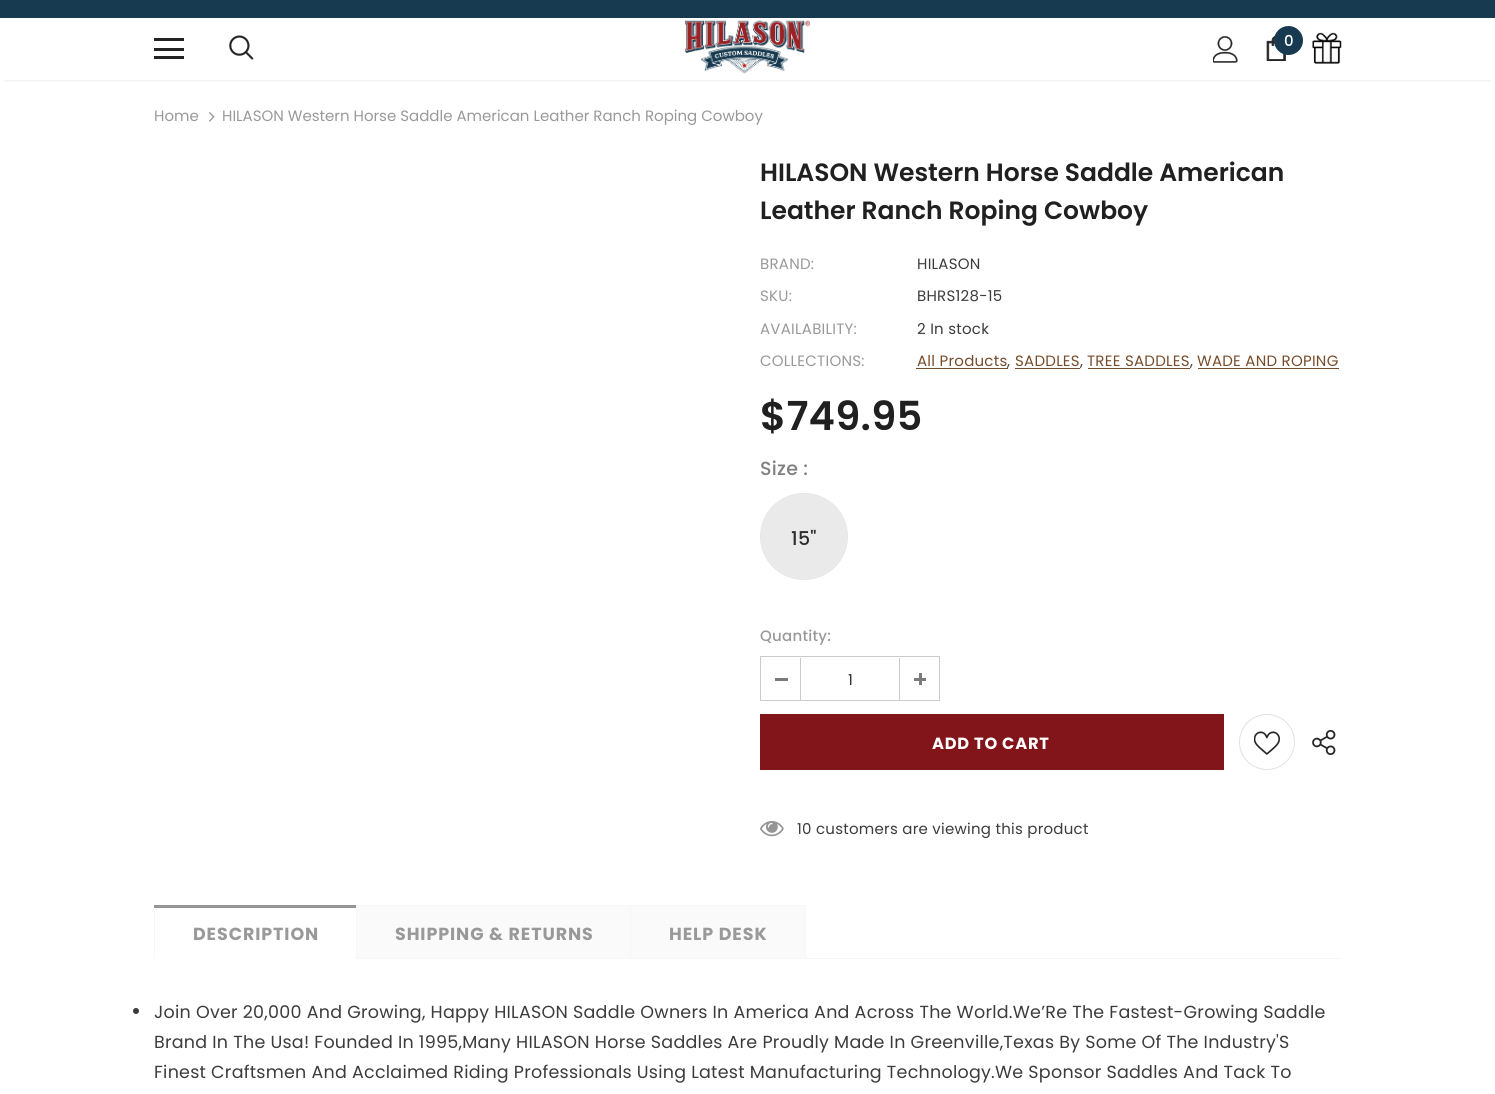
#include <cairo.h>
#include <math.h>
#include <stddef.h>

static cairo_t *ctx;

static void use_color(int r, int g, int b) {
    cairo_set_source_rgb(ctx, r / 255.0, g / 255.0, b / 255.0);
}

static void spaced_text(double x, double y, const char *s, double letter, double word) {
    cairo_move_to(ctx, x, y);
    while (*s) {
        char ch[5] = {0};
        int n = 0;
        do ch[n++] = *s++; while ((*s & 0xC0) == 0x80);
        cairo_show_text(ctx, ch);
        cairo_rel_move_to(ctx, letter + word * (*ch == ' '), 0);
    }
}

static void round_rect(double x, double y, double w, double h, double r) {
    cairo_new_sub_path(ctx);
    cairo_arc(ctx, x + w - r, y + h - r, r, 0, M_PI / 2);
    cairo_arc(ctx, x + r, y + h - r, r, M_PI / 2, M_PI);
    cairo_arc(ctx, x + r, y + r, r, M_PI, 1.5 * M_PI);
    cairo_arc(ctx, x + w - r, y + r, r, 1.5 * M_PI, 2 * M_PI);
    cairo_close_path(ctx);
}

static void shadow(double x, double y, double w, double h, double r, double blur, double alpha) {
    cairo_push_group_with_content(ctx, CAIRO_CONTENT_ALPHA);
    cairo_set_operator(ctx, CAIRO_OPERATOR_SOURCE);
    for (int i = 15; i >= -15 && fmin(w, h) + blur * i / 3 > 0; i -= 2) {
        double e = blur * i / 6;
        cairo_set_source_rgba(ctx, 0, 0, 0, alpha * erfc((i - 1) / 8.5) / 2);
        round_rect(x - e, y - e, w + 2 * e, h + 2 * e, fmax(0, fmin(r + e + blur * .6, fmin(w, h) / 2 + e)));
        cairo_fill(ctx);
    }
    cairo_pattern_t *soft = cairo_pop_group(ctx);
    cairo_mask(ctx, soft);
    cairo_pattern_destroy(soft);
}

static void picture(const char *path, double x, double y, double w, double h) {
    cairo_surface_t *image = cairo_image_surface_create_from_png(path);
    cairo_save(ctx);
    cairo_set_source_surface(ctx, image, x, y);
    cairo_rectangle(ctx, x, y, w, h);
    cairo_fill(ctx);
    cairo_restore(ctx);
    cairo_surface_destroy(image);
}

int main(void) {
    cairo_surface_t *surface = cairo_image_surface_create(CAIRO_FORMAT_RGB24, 1495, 1094);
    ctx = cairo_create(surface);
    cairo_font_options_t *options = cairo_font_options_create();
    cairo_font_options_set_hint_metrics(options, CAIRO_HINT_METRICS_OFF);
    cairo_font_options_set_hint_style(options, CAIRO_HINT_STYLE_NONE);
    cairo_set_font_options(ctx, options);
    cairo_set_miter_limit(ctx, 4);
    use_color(255, 255, 255);
    cairo_paint(ctx);
    use_color(23, 58, 80);
    cairo_rectangle(ctx, 0, 0, 1495, 18);
    cairo_fill(ctx);
    cairo_save(ctx);
    cairo_rectangle(ctx, 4, 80, 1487, 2);
    cairo_clip(ctx);
    use_color(0, 0, 0);
    shadow(4, 25, 1487, 55, 0, 2, 0.12);
    cairo_restore(ctx);
    use_color(35, 35, 35);
    cairo_rectangle(ctx, 154, 38, 30, 3);
    cairo_fill(ctx);
    cairo_rectangle(ctx, 154, 48, 30, 3);
    cairo_fill(ctx);
    cairo_rectangle(ctx, 154, 56, 30, 3);
    cairo_fill(ctx);
    picture("img1.png", 229, 35, 25, 25);
    picture("img2.png", 685, 20, 125, 54);
    picture("img3.png", 1213, 36, 25, 27);
    picture("img4.png", 1266, 36, 20, 25);
    use_color(23, 58, 80);
    cairo_arc(ctx, 1288.5, 40.5, 14.5, 0, 2 * M_PI);
    cairo_fill(ctx);
    cairo_select_font_face(ctx, "Poppins Medium", CAIRO_FONT_SLANT_NORMAL, CAIRO_FONT_WEIGHT_NORMAL);
    cairo_set_font_size(ctx, 15);
    use_color(255, 255, 255);
    cairo_move_to(ctx, 1284, 46);
    cairo_show_text(ctx, "0");
    picture("img5.png", 1312, 32, 30, 32);
    cairo_select_font_face(ctx, "Poppins", CAIRO_FONT_SLANT_NORMAL, CAIRO_FONT_WEIGHT_NORMAL);
    use_color(153, 153, 153);
    cairo_move_to(ctx, 154, 121);
    cairo_show_text(ctx, "Home");
    picture("img6.png", 209, 112, 6, 10);
    cairo_move_to(ctx, 222, 121);
    cairo_show_text(ctx, "HILASON Western Horse Saddle American Leather Ranch Roping Cowboy");
    cairo_select_font_face(ctx, "Poppins SemiBold", CAIRO_FONT_SLANT_NORMAL, CAIRO_FONT_WEIGHT_NORMAL);
    cairo_set_font_size(ctx, 25);
    use_color(32, 32, 32);
    cairo_move_to(ctx, 760, 181);
    cairo_show_text(ctx, "HILASON Western Horse Saddle American");
    cairo_move_to(ctx, 760, 219);
    cairo_show_text(ctx, "Leather Ranch Roping Cowboy");
    cairo_select_font_face(ctx, "Poppins", CAIRO_FONT_SLANT_NORMAL, CAIRO_FONT_WEIGHT_NORMAL);
    cairo_set_font_size(ctx, 15);
    use_color(153, 153, 153);
    spaced_text(760, 269, "BRAND:", 0.25, 0);
    use_color(60, 60, 60);
    spaced_text(917, 269, "HILASON", 0.25, 0);
    use_color(153, 153, 153);
    spaced_text(760, 301, "SKU:", 0.25, 0);
    use_color(60, 60, 60);
    spaced_text(917, 301, "BHRS128-15", 0.25, 0);
    use_color(153, 153, 153);
    spaced_text(760, 334, "AVAILABILITY:", 0.25, 0);
    use_color(60, 60, 60);
    spaced_text(917, 334, "2 In stock", 0.25, 0);
    use_color(153, 153, 153);
    spaced_text(760, 366, "COLLECTIONS:", 0.25, 0);
    use_color(119, 76, 43);
    spaced_text(917, 366, "All Products", 0.25, 0);
    cairo_rectangle(ctx, 916, 368, 92, 1);
    cairo_fill(ctx);
    use_color(60, 60, 60);
    spaced_text(1007, 366, ",", 0.25, 0);
    use_color(119, 76, 43);
    spaced_text(1015, 366, "SADDLES", 0.25, 0);
    cairo_rectangle(ctx, 1015, 368, 65, 1);
    cairo_fill(ctx);
    use_color(60, 60, 60);
    spaced_text(1080, 366, ",", 0.25, 0);
    use_color(119, 76, 43);
    spaced_text(1087, 366, "TREE SADDLES", 0.25, 0);
    cairo_rectangle(ctx, 1088, 368, 102, 1);
    cairo_fill(ctx);
    use_color(60, 60, 60);
    spaced_text(1190, 366, ",", 0.25, 0);
    use_color(119, 76, 43);
    spaced_text(1197, 366, "WADE AND ROPING", 0.25, 0);
    cairo_rectangle(ctx, 1198, 368, 141, 1);
    cairo_fill(ctx);
    cairo_select_font_face(ctx, "Poppins SemiBold", CAIRO_FONT_SLANT_NORMAL, CAIRO_FONT_WEIGHT_NORMAL);
    cairo_set_font_size(ctx, 40);
    use_color(32, 32, 32);
    spaced_text(760, 430, "$749.95", 0.25, 0);
    cairo_select_font_face(ctx, "Poppins Medium", CAIRO_FONT_SLANT_NORMAL, CAIRO_FONT_WEIGHT_NORMAL);
    cairo_set_font_size(ctx, 19);
    use_color(128, 128, 128);
    spaced_text(760, 475, "Size :", 0.25, 0);
    use_color(234, 234, 234);
    round_rect(760.5, 493.5, 87, 86, 43);
    cairo_fill_preserve(ctx);
    use_color(231, 231, 231);
    cairo_set_line_width(ctx, 1);
    cairo_stroke(ctx);
    use_color(45, 45, 45);
    spaced_text(791, 545, "15\"", 0.25, 0);
    cairo_set_font_size(ctx, 15);
    use_color(153, 153, 153);
    spaced_text(760, 641, "Quantity:", 0.25, 0);
    cairo_rectangle(ctx, 760.5, 656.5, 179, 44);
    use_color(203, 203, 203);
    cairo_stroke(ctx);
    cairo_rectangle(ctx, 800, 658, 1, 42);
    cairo_fill(ctx);
    use_color(123, 123, 123);
    cairo_rectangle(ctx, 775, 678, 13, 3);
    cairo_fill(ctx);
    cairo_select_font_face(ctx, "Poppins", CAIRO_FONT_SLANT_NORMAL, CAIRO_FONT_WEIGHT_NORMAL);
    use_color(45, 45, 45);
    cairo_move_to(ctx, 848, 685);
    cairo_show_text(ctx, "1");
    use_color(203, 203, 203);
    cairo_rectangle(ctx, 899, 658, 1, 42);
    cairo_fill(ctx);
    use_color(123, 123, 123);
    cairo_rectangle(ctx, 914, 678, 12, 3);
    cairo_fill(ctx);
    cairo_rectangle(ctx, 919, 673, 3, 12);
    cairo_fill(ctx);
    use_color(130, 21, 26);
    cairo_rectangle(ctx, 760, 714, 464, 56);
    cairo_fill(ctx);
    cairo_select_font_face(ctx, "Poppins", CAIRO_FONT_SLANT_NORMAL, CAIRO_FONT_WEIGHT_BOLD);
    cairo_set_font_size(ctx, 16.25);
    use_color(255, 255, 255);
    spaced_text(932, 749, "ADD TO CART", 0.75, 0);
    cairo_new_path(ctx);
    cairo_arc(ctx, 1267, 742, 27.5, 0, 2 * M_PI);
    use_color(225, 225, 225);
    cairo_stroke(ctx);
    picture("img7.png", 1254, 731, 26, 24);
    picture("img8.png", 1312, 730, 24, 25);
    picture("img9.png", 760, 821, 24, 16);
    cairo_select_font_face(ctx, "Poppins", CAIRO_FONT_SLANT_NORMAL, CAIRO_FONT_WEIGHT_NORMAL);
    cairo_set_font_size(ctx, 15);
    use_color(60, 60, 60);
    spaced_text(797, 834, "10 customers are viewing this product", 0.25, 0);
    use_color(246, 246, 246);
    cairo_rectangle(ctx, 154, 958, 1187, 1);
    cairo_fill(ctx);
    cairo_rectangle(ctx, 154, 905, 1, 53);
    cairo_fill(ctx);
    use_color(150, 150, 150);
    cairo_rectangle(ctx, 154, 905, 204, 3);
    cairo_fill(ctx);
    cairo_select_font_face(ctx, "Poppins", CAIRO_FONT_SLANT_NORMAL, CAIRO_FONT_WEIGHT_BOLD);
    cairo_set_font_size(ctx, 17.5);
    use_color(153, 153, 153);
    spaced_text(193, 940, "DESCRIPTION", 0.9, 0);
    use_color(255, 255, 255);
    cairo_rectangle(ctx, 155, 958, 201, 1);
    cairo_fill(ctx);
    use_color(250, 250, 250);
    cairo_rectangle(ctx, 357, 906, 273, 52);
    cairo_fill(ctx);
    use_color(246, 246, 246);
    cairo_rectangle(ctx, 356, 905, 450, 1);
    cairo_fill(ctx);
    cairo_rectangle(ctx, 356, 905, 1, 53);
    cairo_fill(ctx);
    use_color(153, 153, 153);
    spaced_text(395, 940, "SHIPPING & RETURNS", 0.9, 0);
    use_color(250, 250, 250);
    cairo_rectangle(ctx, 631, 906, 174, 52);
    cairo_fill(ctx);
    use_color(246, 246, 246);
    cairo_rectangle(ctx, 805, 905, 1, 53);
    cairo_fill(ctx);
    cairo_rectangle(ctx, 630, 905, 1, 53);
    cairo_fill(ctx);
    use_color(153, 153, 153);
    spaced_text(669, 940, "HELP DESK", 0.9, 0);
    use_color(60, 60, 60);
    cairo_new_path(ctx);
    cairo_arc(ctx, 136, 1011, 3, 0, 2 * M_PI);
    cairo_fill(ctx);
    cairo_select_font_face(ctx, "Poppins", CAIRO_FONT_SLANT_NORMAL, CAIRO_FONT_WEIGHT_NORMAL);
    spaced_text(154, 1018, "Join Over 20,000 And Growing, Happy HILASON Saddle Owners In America And Across The World.We’Re The Fastest-Growing Saddle", 0.25, 0);
    spaced_text(154, 1048, "Brand In The Usa! Founded In 1995,Many HILASON Horse Saddles Are Proudly Made In Greenville,Texas By Some Of The Industry'S", 0.25, 0);
    spaced_text(154, 1078, "Finest Craftsmen And Acclaimed Riding Professionals Using Latest Manufacturing Technology.We Sponsor Saddles And Tack To", 0.25, 0);
    cairo_surface_write_to_png(surface, "result.png");
    cairo_font_options_destroy(options);
    cairo_destroy(ctx);
    cairo_surface_destroy(surface);
    return 0;
}
